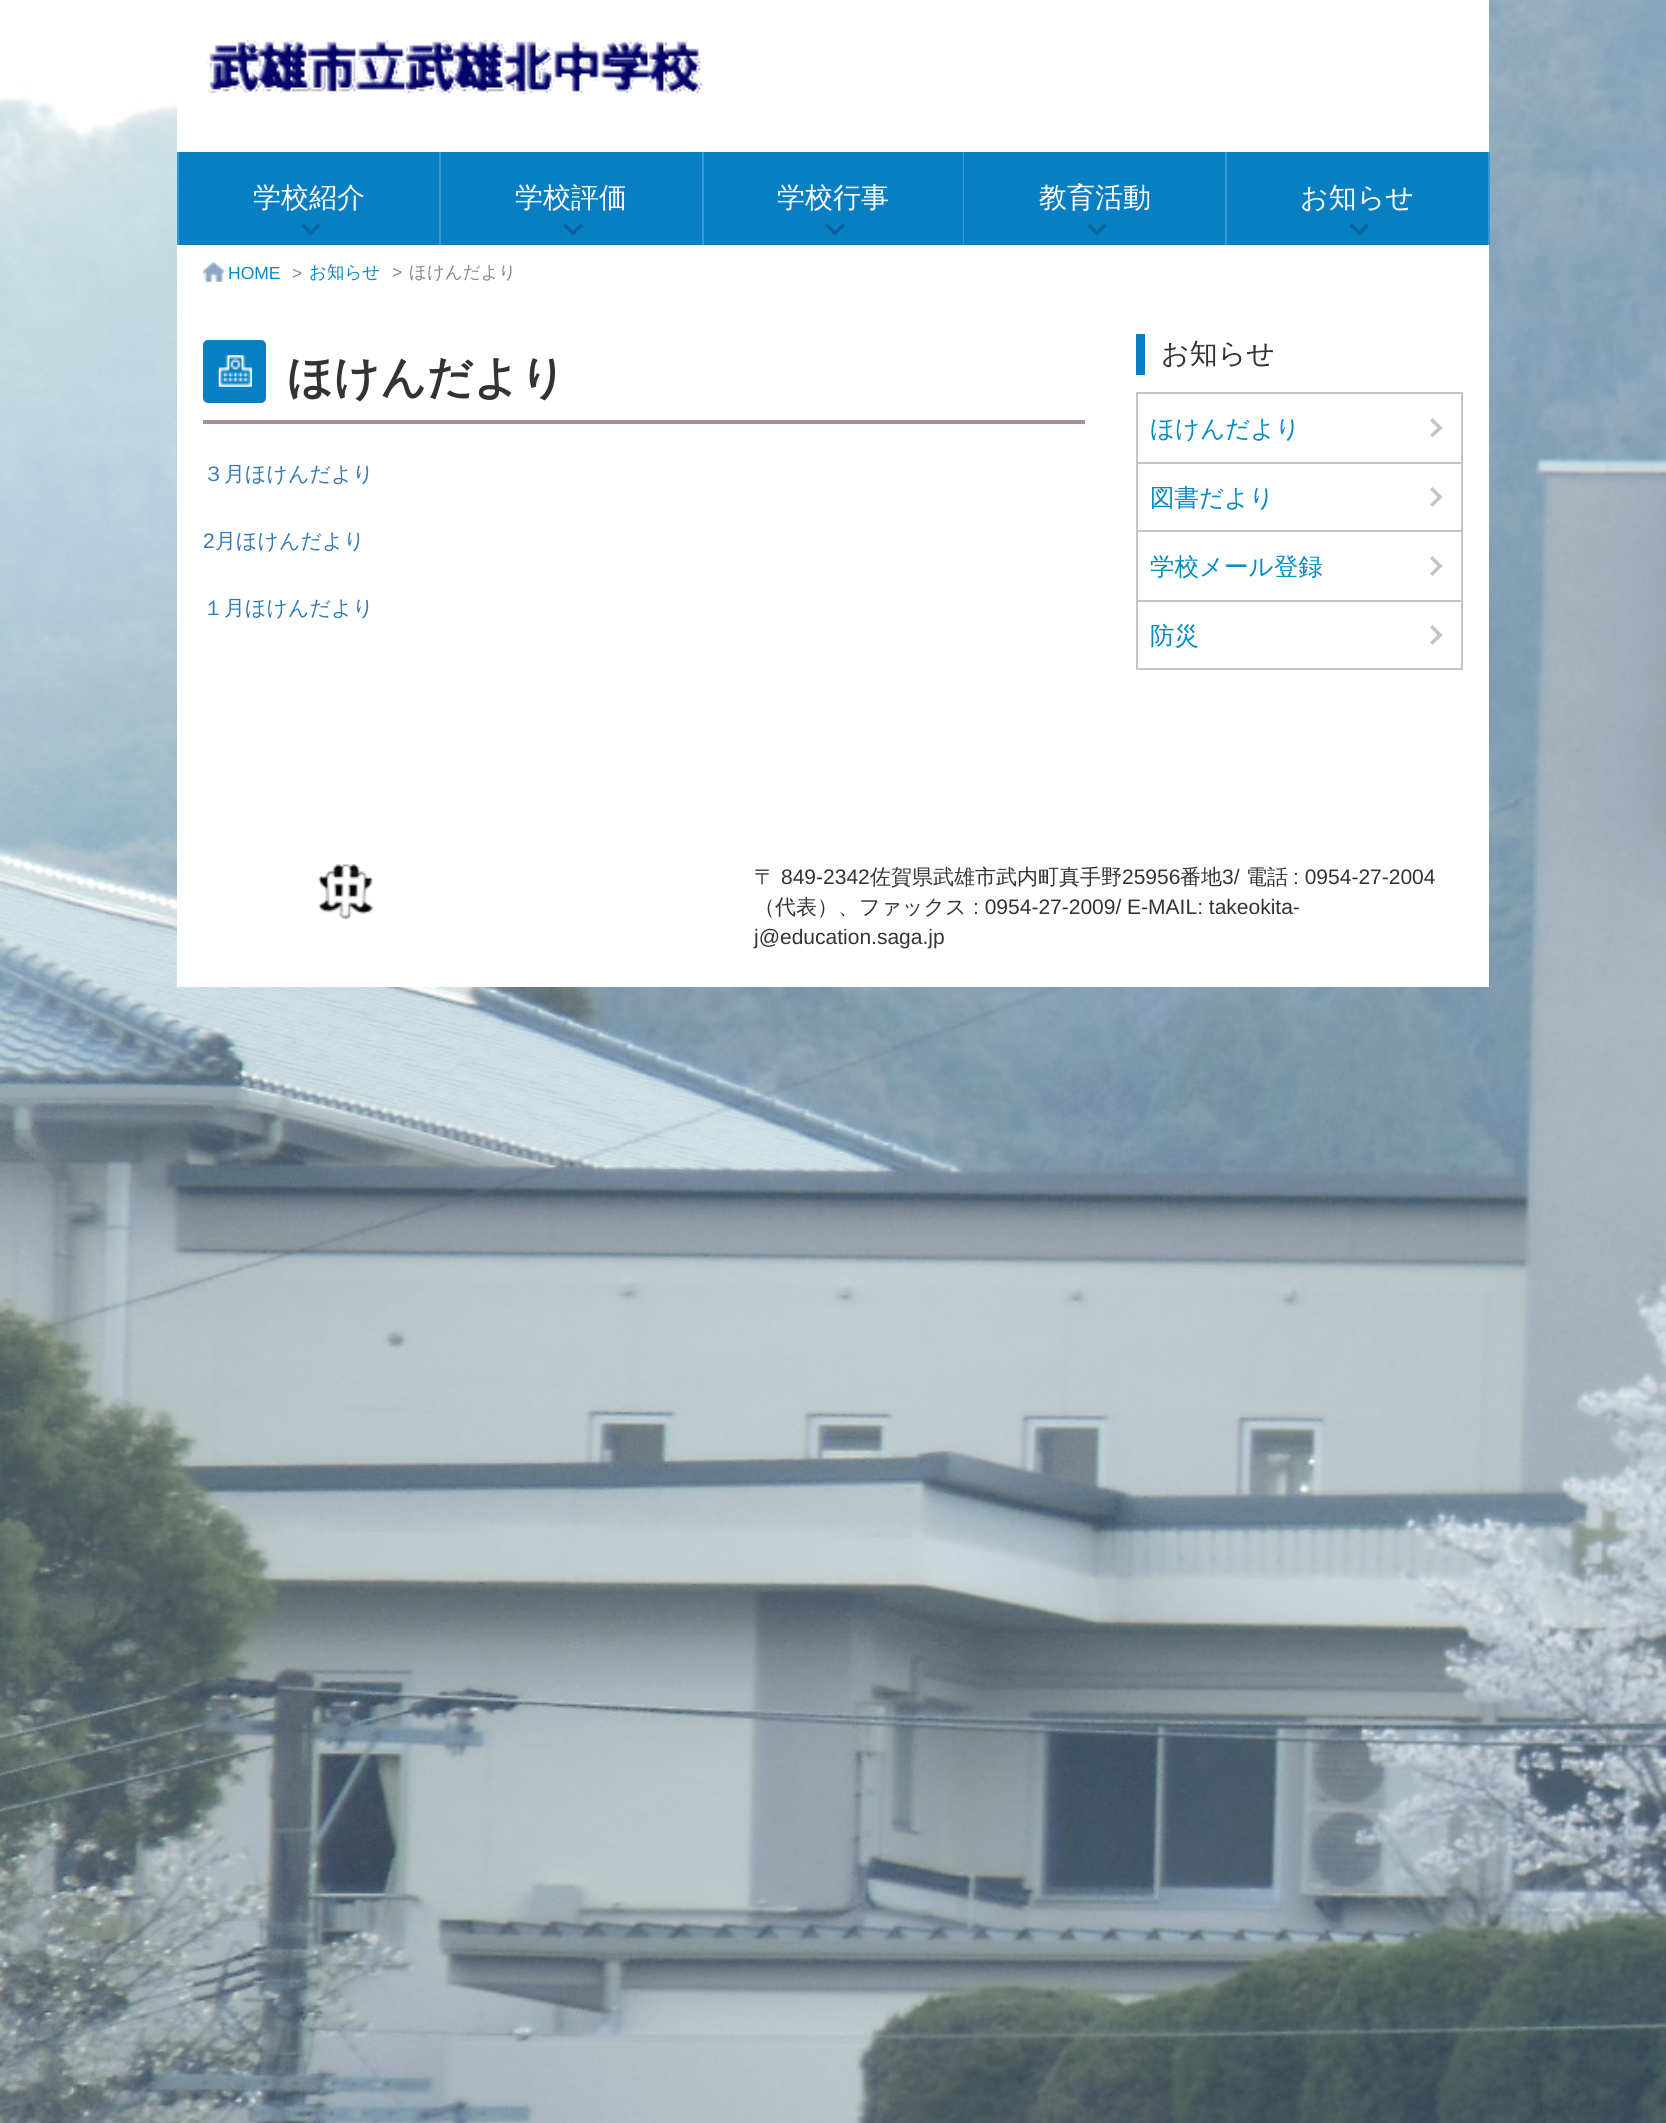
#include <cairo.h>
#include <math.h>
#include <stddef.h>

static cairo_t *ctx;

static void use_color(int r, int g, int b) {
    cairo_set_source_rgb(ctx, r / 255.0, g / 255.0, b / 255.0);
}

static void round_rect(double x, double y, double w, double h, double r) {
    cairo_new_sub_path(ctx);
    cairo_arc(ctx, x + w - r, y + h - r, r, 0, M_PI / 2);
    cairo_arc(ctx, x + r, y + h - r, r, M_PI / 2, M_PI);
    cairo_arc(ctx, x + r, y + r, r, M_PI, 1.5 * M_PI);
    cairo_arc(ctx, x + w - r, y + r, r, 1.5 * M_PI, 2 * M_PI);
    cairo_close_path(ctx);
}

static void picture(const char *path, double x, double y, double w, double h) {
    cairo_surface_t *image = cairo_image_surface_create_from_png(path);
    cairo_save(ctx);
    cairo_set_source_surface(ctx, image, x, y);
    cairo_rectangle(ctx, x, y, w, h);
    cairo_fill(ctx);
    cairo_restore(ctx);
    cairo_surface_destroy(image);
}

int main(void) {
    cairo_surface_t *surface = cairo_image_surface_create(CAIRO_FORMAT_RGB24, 1666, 2123);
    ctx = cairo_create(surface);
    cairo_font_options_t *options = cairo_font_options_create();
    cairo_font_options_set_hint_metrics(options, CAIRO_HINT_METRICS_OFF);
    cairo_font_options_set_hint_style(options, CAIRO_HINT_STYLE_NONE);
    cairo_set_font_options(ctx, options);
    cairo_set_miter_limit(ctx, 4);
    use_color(255, 255, 255);
    cairo_paint(ctx);
    picture("img1.png", 0, 0, 1666, 2123);
    use_color(255, 255, 255);
    cairo_rectangle(ctx, 177, 0, 1312, 152);
    cairo_fill(ctx);
    picture("img2.png", 206, 40, 497, 55);
    use_color(52, 154, 213);
    cairo_rectangle(ctx, 177, 152, 2, 93);
    cairo_fill(ctx);
    cairo_rectangle(ctx, 439, 152, 2, 93);
    cairo_fill(ctx);
    use_color(9, 127, 195);
    cairo_rectangle(ctx, 179, 152, 260, 93);
    cairo_fill(ctx);
    cairo_select_font_face(ctx, "WenQuanYi Zen Hei Medium", CAIRO_FONT_SLANT_NORMAL, CAIRO_FONT_WEIGHT_NORMAL);
    cairo_set_font_size(ctx, 28);
    use_color(255, 255, 255);
    cairo_move_to(ctx, 253, 207);
    cairo_show_text(ctx, "学校紹介");
    use_color(4, 101, 156);
    cairo_new_path(ctx);
    cairo_move_to(ctx, 318, 223.5);
    cairo_line_to(ctx, 320.5, 226);
    cairo_line_to(ctx, 310.5, 235.5);
    cairo_line_to(ctx, 308.5, 233);
    cairo_close_path(ctx);
    cairo_fill(ctx);
    cairo_new_path(ctx);
    cairo_move_to(ctx, 303.5, 223.5);
    cairo_line_to(ctx, 313, 233);
    cairo_line_to(ctx, 310.5, 235.5);
    cairo_line_to(ctx, 301, 226);
    cairo_close_path(ctx);
    cairo_fill(ctx);
    use_color(52, 154, 213);
    cairo_rectangle(ctx, 702, 152, 2, 93);
    cairo_fill(ctx);
    use_color(9, 127, 195);
    cairo_rectangle(ctx, 441, 152, 261, 93);
    cairo_fill(ctx);
    use_color(255, 255, 255);
    cairo_move_to(ctx, 515, 207);
    cairo_show_text(ctx, "学校評価");
    use_color(4, 101, 156);
    cairo_new_path(ctx);
    cairo_move_to(ctx, 580.5, 223.5);
    cairo_line_to(ctx, 583, 226);
    cairo_line_to(ctx, 573, 235.5);
    cairo_line_to(ctx, 570.5, 233);
    cairo_close_path(ctx);
    cairo_fill(ctx);
    cairo_new_path(ctx);
    cairo_move_to(ctx, 565.5, 223.5);
    cairo_line_to(ctx, 575.5, 233);
    cairo_line_to(ctx, 573, 235.5);
    cairo_line_to(ctx, 563, 226);
    cairo_close_path(ctx);
    cairo_fill(ctx);
    use_color(52, 154, 213);
    cairo_rectangle(ctx, 963, 152, 1, 93);
    cairo_fill(ctx);
    use_color(9, 127, 195);
    cairo_rectangle(ctx, 704, 152, 259, 93);
    cairo_fill(ctx);
    use_color(255, 255, 255);
    cairo_move_to(ctx, 777, 207);
    cairo_show_text(ctx, "学校行事");
    use_color(4, 101, 156);
    cairo_new_path(ctx);
    cairo_move_to(ctx, 842.5, 223.5);
    cairo_line_to(ctx, 845, 226);
    cairo_line_to(ctx, 835, 235.5);
    cairo_line_to(ctx, 832.5, 233);
    cairo_close_path(ctx);
    cairo_fill(ctx);
    cairo_new_path(ctx);
    cairo_move_to(ctx, 827.5, 223.5);
    cairo_line_to(ctx, 837.5, 233);
    cairo_line_to(ctx, 835, 235.5);
    cairo_line_to(ctx, 825, 226);
    cairo_close_path(ctx);
    cairo_fill(ctx);
    use_color(52, 154, 213);
    cairo_rectangle(ctx, 1225, 152, 2, 93);
    cairo_fill(ctx);
    use_color(9, 127, 195);
    cairo_rectangle(ctx, 964, 152, 261, 93);
    cairo_fill(ctx);
    use_color(255, 255, 255);
    cairo_move_to(ctx, 1039, 207);
    cairo_show_text(ctx, "教育活動");
    use_color(4, 101, 156);
    cairo_new_path(ctx);
    cairo_move_to(ctx, 1104.5, 223.5);
    cairo_line_to(ctx, 1107, 226);
    cairo_line_to(ctx, 1097, 235.5);
    cairo_line_to(ctx, 1094.5, 233);
    cairo_close_path(ctx);
    cairo_fill(ctx);
    cairo_new_path(ctx);
    cairo_move_to(ctx, 1089.5, 223.5);
    cairo_line_to(ctx, 1099.5, 233);
    cairo_line_to(ctx, 1097, 235.5);
    cairo_line_to(ctx, 1087.5, 226);
    cairo_close_path(ctx);
    cairo_fill(ctx);
    use_color(52, 154, 213);
    cairo_rectangle(ctx, 1488, 152, 2, 93);
    cairo_fill(ctx);
    use_color(9, 127, 195);
    cairo_rectangle(ctx, 1227, 152, 261, 93);
    cairo_fill(ctx);
    use_color(255, 255, 255);
    cairo_move_to(ctx, 1300, 207);
    cairo_show_text(ctx, "お知らせ");
    use_color(4, 101, 156);
    cairo_new_path(ctx);
    cairo_move_to(ctx, 1366.5, 223.5);
    cairo_line_to(ctx, 1369, 226);
    cairo_line_to(ctx, 1359.5, 235.5);
    cairo_line_to(ctx, 1357, 233);
    cairo_close_path(ctx);
    cairo_fill(ctx);
    cairo_new_path(ctx);
    cairo_move_to(ctx, 1352, 223.5);
    cairo_line_to(ctx, 1362, 233);
    cairo_line_to(ctx, 1359.5, 235.5);
    cairo_line_to(ctx, 1349.5, 226);
    cairo_close_path(ctx);
    cairo_fill(ctx);
    use_color(255, 255, 255);
    cairo_rectangle(ctx, 177, 245, 1312, 742);
    cairo_fill(ctx);
    picture("img3.png", 203, 262, 21, 20);
    cairo_select_font_face(ctx, "Liberation Sans", CAIRO_FONT_SLANT_NORMAL, CAIRO_FONT_WEIGHT_NORMAL);
    cairo_set_font_size(ctx, 17.5);
    use_color(1, 139, 196);
    cairo_move_to(ctx, 228, 279);
    cairo_show_text(ctx, "HOME");
    use_color(134, 134, 134);
    cairo_move_to(ctx, 292, 279);
    cairo_show_text(ctx, ">");
    cairo_select_font_face(ctx, "WenQuanYi Zen Hei Medium", CAIRO_FONT_SLANT_NORMAL, CAIRO_FONT_WEIGHT_NORMAL);
    use_color(1, 139, 196);
    cairo_move_to(ctx, 309, 278);
    cairo_show_text(ctx, "お知らせ");
    cairo_select_font_face(ctx, "Liberation Sans", CAIRO_FONT_SLANT_NORMAL, CAIRO_FONT_WEIGHT_NORMAL);
    use_color(134, 134, 134);
    cairo_move_to(ctx, 392, 278);
    cairo_show_text(ctx, ">");
    cairo_select_font_face(ctx, "WenQuanYi Zen Hei Medium", CAIRO_FONT_SLANT_NORMAL, CAIRO_FONT_WEIGHT_NORMAL);
    cairo_move_to(ctx, 409, 278);
    cairo_show_text(ctx, "ほけんだより");
    use_color(173, 144, 144);
    cairo_rectangle(ctx, 203, 420, 882, 4);
    cairo_fill(ctx);
    use_color(9, 127, 195);
    round_rect(203, 340, 63, 63, 5);
    cairo_fill(ctx);
    picture("img4.png", 218, 355, 34, 32);
    cairo_select_font_face(ctx, "WenQuanYi Zen Hei", CAIRO_FONT_SLANT_NORMAL, CAIRO_FONT_WEIGHT_BOLD);
    cairo_set_font_size(ctx, 45.5);
    use_color(51, 51, 51);
    cairo_move_to(ctx, 287, 393);
    cairo_show_text(ctx, "ほけんだより");
    cairo_select_font_face(ctx, "WenQuanYi Zen Hei Medium", CAIRO_FONT_SLANT_NORMAL, CAIRO_FONT_WEIGHT_NORMAL);
    cairo_set_font_size(ctx, 21);
    use_color(51, 122, 183);
    cairo_move_to(ctx, 203, 481);
    cairo_show_text(ctx, "３月ほけんだより");
    cairo_select_font_face(ctx, "Liberation Sans", CAIRO_FONT_SLANT_NORMAL, CAIRO_FONT_WEIGHT_NORMAL);
    cairo_move_to(ctx, 203, 548);
    cairo_show_text(ctx, "2");
    cairo_select_font_face(ctx, "WenQuanYi Zen Hei Medium", CAIRO_FONT_SLANT_NORMAL, CAIRO_FONT_WEIGHT_NORMAL);
    cairo_move_to(ctx, 215, 548);
    cairo_show_text(ctx, "月ほけんだより");
    cairo_move_to(ctx, 203, 615);
    cairo_show_text(ctx, "１月ほけんだより");
    use_color(9, 127, 195);
    cairo_rectangle(ctx, 1136, 334, 9, 41);
    cairo_fill(ctx);
    cairo_set_font_size(ctx, 28);
    use_color(51, 51, 51);
    cairo_move_to(ctx, 1161, 363);
    cairo_show_text(ctx, "お知らせ");
    cairo_rectangle(ctx, 1137, 393, 325, 276);
    use_color(197, 197, 197);
    cairo_stroke(ctx);
    cairo_rectangle(ctx, 1138, 462, 323, 2);
    cairo_fill(ctx);
    cairo_set_font_size(ctx, 24.5);
    use_color(1, 139, 196);
    cairo_move_to(ctx, 1150, 437);
    cairo_show_text(ctx, "ほけんだより");
    use_color(197, 197, 197);
    cairo_new_path(ctx);
    cairo_move_to(ctx, 1432.5, 418);
    cairo_line_to(ctx, 1442.5, 428);
    cairo_line_to(ctx, 1440, 430);
    cairo_line_to(ctx, 1430, 420.5);
    cairo_close_path(ctx);
    cairo_fill(ctx);
    cairo_new_path(ctx);
    cairo_move_to(ctx, 1440, 425.5);
    cairo_line_to(ctx, 1442.5, 428);
    cairo_line_to(ctx, 1432.5, 437.5);
    cairo_line_to(ctx, 1430, 435);
    cairo_close_path(ctx);
    cairo_fill(ctx);
    cairo_rectangle(ctx, 1138, 530, 323, 2);
    cairo_fill(ctx);
    use_color(1, 139, 196);
    cairo_move_to(ctx, 1150, 506);
    cairo_show_text(ctx, "図書だより");
    use_color(197, 197, 197);
    cairo_new_path(ctx);
    cairo_move_to(ctx, 1432.5, 487);
    cairo_line_to(ctx, 1442.5, 497);
    cairo_line_to(ctx, 1440, 499.5);
    cairo_line_to(ctx, 1430, 489.5);
    cairo_close_path(ctx);
    cairo_fill(ctx);
    cairo_new_path(ctx);
    cairo_move_to(ctx, 1440, 494.5);
    cairo_line_to(ctx, 1442.5, 497);
    cairo_line_to(ctx, 1432.5, 507);
    cairo_line_to(ctx, 1430, 504.5);
    cairo_close_path(ctx);
    cairo_fill(ctx);
    cairo_rectangle(ctx, 1138, 600, 323, 2);
    cairo_fill(ctx);
    use_color(1, 139, 196);
    cairo_move_to(ctx, 1150, 575);
    cairo_show_text(ctx, "学校メール登録");
    use_color(197, 197, 197);
    cairo_new_path(ctx);
    cairo_move_to(ctx, 1432.5, 556);
    cairo_line_to(ctx, 1442.5, 566);
    cairo_line_to(ctx, 1440, 568.5);
    cairo_line_to(ctx, 1430, 558.5);
    cairo_close_path(ctx);
    cairo_fill(ctx);
    cairo_new_path(ctx);
    cairo_move_to(ctx, 1440, 563.5);
    cairo_line_to(ctx, 1442.5, 566);
    cairo_line_to(ctx, 1432.5, 576);
    cairo_line_to(ctx, 1430, 573.5);
    cairo_close_path(ctx);
    cairo_fill(ctx);
    use_color(1, 139, 196);
    cairo_move_to(ctx, 1150, 644);
    cairo_show_text(ctx, "防災");
    use_color(197, 197, 197);
    cairo_new_path(ctx);
    cairo_move_to(ctx, 1432.5, 625);
    cairo_line_to(ctx, 1442.5, 635);
    cairo_line_to(ctx, 1440, 637.5);
    cairo_line_to(ctx, 1430, 627.5);
    cairo_close_path(ctx);
    cairo_fill(ctx);
    cairo_new_path(ctx);
    cairo_move_to(ctx, 1440, 632.5);
    cairo_line_to(ctx, 1442.5, 635);
    cairo_line_to(ctx, 1432.5, 645);
    cairo_line_to(ctx, 1430, 642.5);
    cairo_close_path(ctx);
    cairo_fill(ctx);
    picture("img5.png", 318, 864, 56, 55);
    cairo_set_font_size(ctx, 21);
    use_color(51, 51, 51);
    cairo_move_to(ctx, 754, 884);
    cairo_show_text(ctx, "〒");
    cairo_select_font_face(ctx, "Liberation Sans", CAIRO_FONT_SLANT_NORMAL, CAIRO_FONT_WEIGHT_NORMAL);
    cairo_move_to(ctx, 781, 884);
    cairo_show_text(ctx, "849-2342");
    cairo_select_font_face(ctx, "WenQuanYi Zen Hei Medium", CAIRO_FONT_SLANT_NORMAL, CAIRO_FONT_WEIGHT_NORMAL);
    cairo_move_to(ctx, 870, 884);
    cairo_show_text(ctx, "佐賀県武雄市武内町真手野");
    cairo_select_font_face(ctx, "Liberation Sans", CAIRO_FONT_SLANT_NORMAL, CAIRO_FONT_WEIGHT_NORMAL);
    cairo_move_to(ctx, 1122, 884);
    cairo_show_text(ctx, "25956");
    cairo_select_font_face(ctx, "WenQuanYi Zen Hei Medium", CAIRO_FONT_SLANT_NORMAL, CAIRO_FONT_WEIGHT_NORMAL);
    cairo_move_to(ctx, 1180, 884);
    cairo_show_text(ctx, "番地");
    cairo_select_font_face(ctx, "Liberation Sans", CAIRO_FONT_SLANT_NORMAL, CAIRO_FONT_WEIGHT_NORMAL);
    cairo_move_to(ctx, 1222, 884);
    cairo_show_text(ctx, "3/");
    cairo_select_font_face(ctx, "WenQuanYi Zen Hei Medium", CAIRO_FONT_SLANT_NORMAL, CAIRO_FONT_WEIGHT_NORMAL);
    cairo_move_to(ctx, 1246, 884);
    cairo_show_text(ctx, "電話");
    cairo_select_font_face(ctx, "Liberation Sans", CAIRO_FONT_SLANT_NORMAL, CAIRO_FONT_WEIGHT_NORMAL);
    cairo_move_to(ctx, 1293, 884);
    cairo_show_text(ctx, ": 0954-27-2004");
    cairo_select_font_face(ctx, "WenQuanYi Zen Hei Medium", CAIRO_FONT_SLANT_NORMAL, CAIRO_FONT_WEIGHT_NORMAL);
    cairo_move_to(ctx, 754, 914);
    cairo_show_text(ctx, "（代表）、ファックス");
    cairo_select_font_face(ctx, "Liberation Sans", CAIRO_FONT_SLANT_NORMAL, CAIRO_FONT_WEIGHT_NORMAL);
    cairo_move_to(ctx, 973, 914);
    cairo_show_text(ctx, ": 0954-27-2009/ E-MAIL: takeokita-");
    cairo_move_to(ctx, 754, 944);
    cairo_show_text(ctx, "j@education.saga.jp");
    cairo_surface_write_to_png(surface, "result.png");
    cairo_font_options_destroy(options);
    cairo_destroy(ctx);
    cairo_surface_destroy(surface);
    return 0;
}
